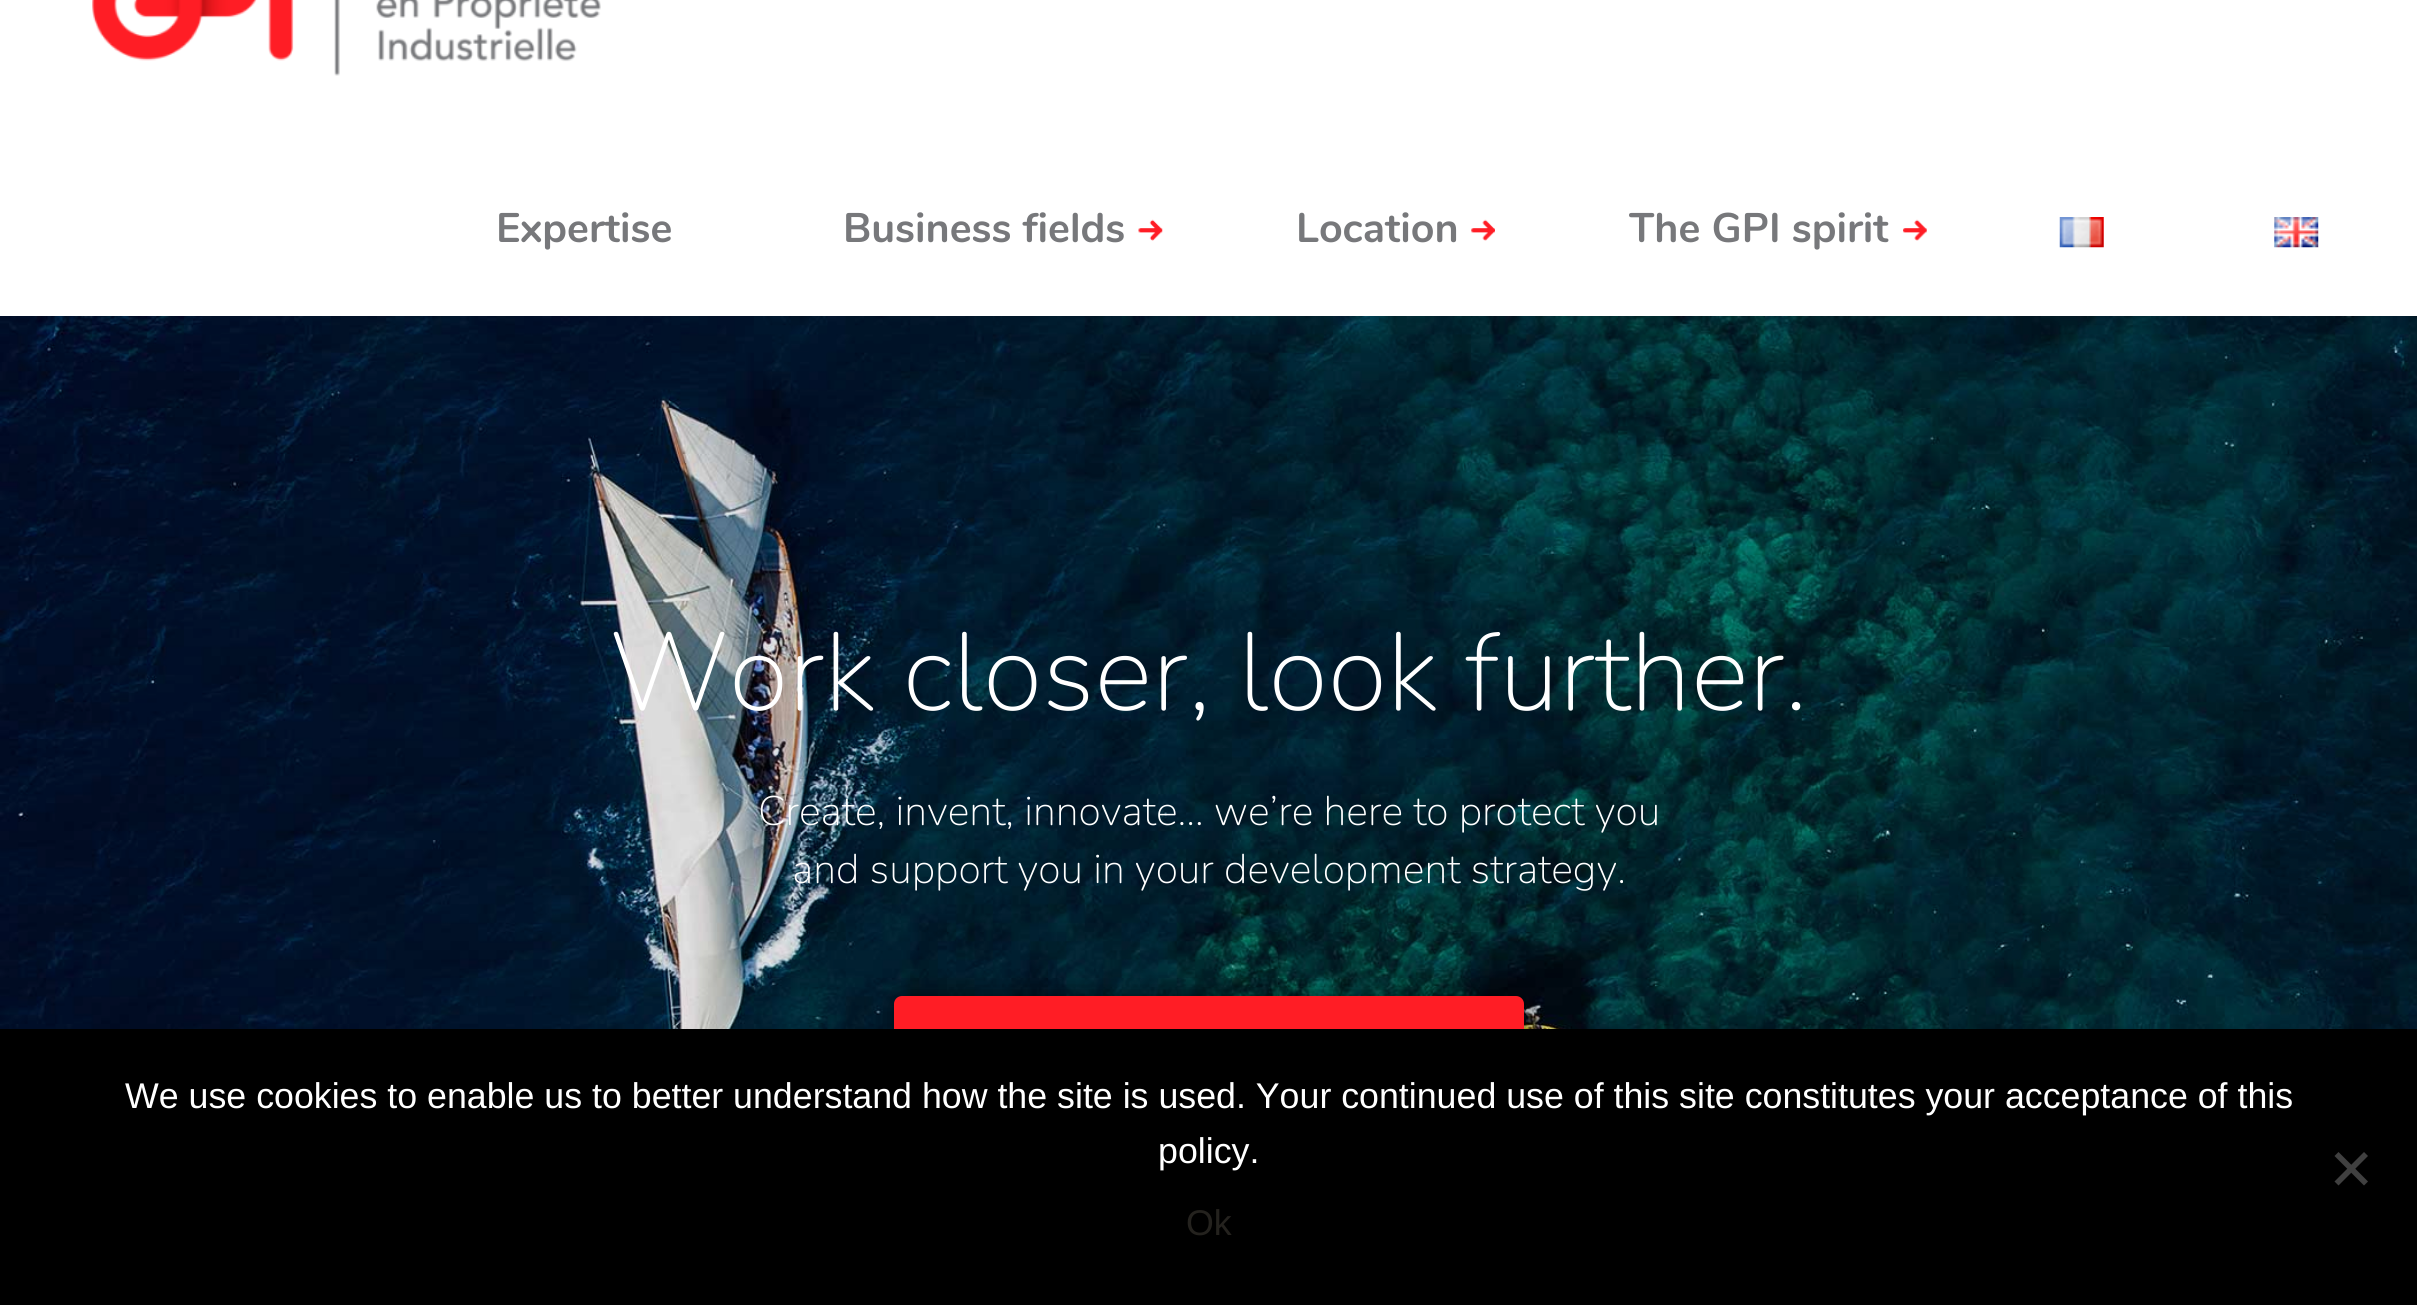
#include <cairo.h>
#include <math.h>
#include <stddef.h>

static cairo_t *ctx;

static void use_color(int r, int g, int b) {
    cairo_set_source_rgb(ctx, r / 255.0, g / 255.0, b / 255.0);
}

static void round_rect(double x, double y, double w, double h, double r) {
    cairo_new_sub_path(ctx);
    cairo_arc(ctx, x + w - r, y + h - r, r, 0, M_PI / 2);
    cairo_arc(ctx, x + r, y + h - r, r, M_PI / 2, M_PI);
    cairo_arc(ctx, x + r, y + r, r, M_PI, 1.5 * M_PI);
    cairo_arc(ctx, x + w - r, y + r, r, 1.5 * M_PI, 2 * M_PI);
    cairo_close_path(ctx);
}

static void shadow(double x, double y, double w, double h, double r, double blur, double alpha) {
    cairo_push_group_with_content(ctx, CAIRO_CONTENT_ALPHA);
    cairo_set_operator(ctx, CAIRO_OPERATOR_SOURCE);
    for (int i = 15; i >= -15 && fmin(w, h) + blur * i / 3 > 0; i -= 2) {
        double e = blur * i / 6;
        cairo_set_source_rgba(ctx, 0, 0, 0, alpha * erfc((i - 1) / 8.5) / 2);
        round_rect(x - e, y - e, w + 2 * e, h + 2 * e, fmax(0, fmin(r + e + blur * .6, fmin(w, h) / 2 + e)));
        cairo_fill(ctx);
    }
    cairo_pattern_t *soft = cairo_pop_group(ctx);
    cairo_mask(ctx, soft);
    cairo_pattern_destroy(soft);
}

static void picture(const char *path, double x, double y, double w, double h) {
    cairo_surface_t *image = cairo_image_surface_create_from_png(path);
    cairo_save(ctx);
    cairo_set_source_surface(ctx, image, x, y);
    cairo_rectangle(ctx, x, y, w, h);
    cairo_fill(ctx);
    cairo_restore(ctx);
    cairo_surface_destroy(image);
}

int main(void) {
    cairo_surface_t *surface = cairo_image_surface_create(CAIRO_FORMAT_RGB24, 2417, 1305);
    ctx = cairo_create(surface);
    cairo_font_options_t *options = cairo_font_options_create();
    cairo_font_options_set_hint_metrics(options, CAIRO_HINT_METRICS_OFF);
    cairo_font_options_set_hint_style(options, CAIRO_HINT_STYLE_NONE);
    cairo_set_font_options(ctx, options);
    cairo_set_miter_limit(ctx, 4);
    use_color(255, 255, 255);
    cairo_paint(ctx);
    picture("img1.png", 92, 0, 509, 76);
    cairo_select_font_face(ctx, "Nunito", CAIRO_FONT_SLANT_NORMAL, CAIRO_FONT_WEIGHT_BOLD);
    cairo_set_font_size(ctx, 41.25);
    use_color(119, 120, 123);
    cairo_move_to(ctx, 496, 242);
    cairo_show_text(ctx, "Expertise");
    picture("img2.png", 1138, 219, 25, 22);
    cairo_move_to(ctx, 843, 242);
    cairo_show_text(ctx, "Business fields");
    picture("img3.png", 1471, 219, 24, 22);
    cairo_move_to(ctx, 1296, 242);
    cairo_show_text(ctx, "Location");
    picture("img4.png", 1903, 219, 24, 22);
    cairo_move_to(ctx, 1629, 242);
    cairo_show_text(ctx, "The GPI spirit");
    picture("img5.png", 2059, 217, 45, 31);
    picture("img6.png", 2274, 217, 45, 31);
    picture("img7.png", 0, 316, 2417, 713);
    cairo_select_font_face(ctx, "Nunito ExtraLight", CAIRO_FONT_SLANT_NORMAL, CAIRO_FONT_WEIGHT_NORMAL);
    cairo_set_font_size(ctx, 110);
    use_color(255, 255, 255);
    cairo_move_to(ctx, 609, 710);
    cairo_show_text(ctx, "Work closer, look further.");
    cairo_set_font_size(ctx, 41.25);
    cairo_move_to(ctx, 758, 825);
    cairo_show_text(ctx, "Create, invent, innovate… we’re here to protect you");
    cairo_move_to(ctx, 792, 883);
    cairo_show_text(ctx, "and support you in your development strategy.");
    use_color(0, 0, 0);
    shadow(894, 996, 630, 123, 8, 14, 0.5);
    use_color(255, 29, 37);
    round_rect(894, 996, 630, 123, 8);
    cairo_fill(ctx);
    use_color(0, 0, 0);
    cairo_rectangle(ctx, 0, 1029, 2417, 276);
    cairo_fill(ctx);
    cairo_select_font_face(ctx, "Liberation Sans", CAIRO_FONT_SLANT_NORMAL, CAIRO_FONT_WEIGHT_NORMAL);
    cairo_set_font_size(ctx, 35.75);
    use_color(255, 255, 255);
    cairo_move_to(ctx, 125, 1108);
    cairo_show_text(ctx, "We use cookies to enable us to better understand how the site is used. Your continued use of this site constitutes your acceptance of this");
    cairo_move_to(ctx, 1158, 1163);
    cairo_show_text(ctx, "policy.");
    use_color(64, 64, 64);
    cairo_new_path(ctx);
    cairo_move_to(ctx, 2364, 1152);
    cairo_line_to(ctx, 2368, 1156);
    cairo_line_to(ctx, 2338.5, 1185.5);
    cairo_line_to(ctx, 2334.5, 1181.5);
    cairo_close_path(ctx);
    cairo_fill(ctx);
    cairo_new_path(ctx);
    cairo_move_to(ctx, 2334.5, 1156);
    cairo_line_to(ctx, 2338.5, 1152);
    cairo_line_to(ctx, 2368, 1181.5);
    cairo_line_to(ctx, 2364, 1185.5);
    cairo_close_path(ctx);
    cairo_fill(ctx);
    use_color(36, 34, 30);
    cairo_move_to(ctx, 1186, 1235);
    cairo_show_text(ctx, "Ok");
    cairo_surface_write_to_png(surface, "result.png");
    cairo_font_options_destroy(options);
    cairo_destroy(ctx);
    cairo_surface_destroy(surface);
    return 0;
}
